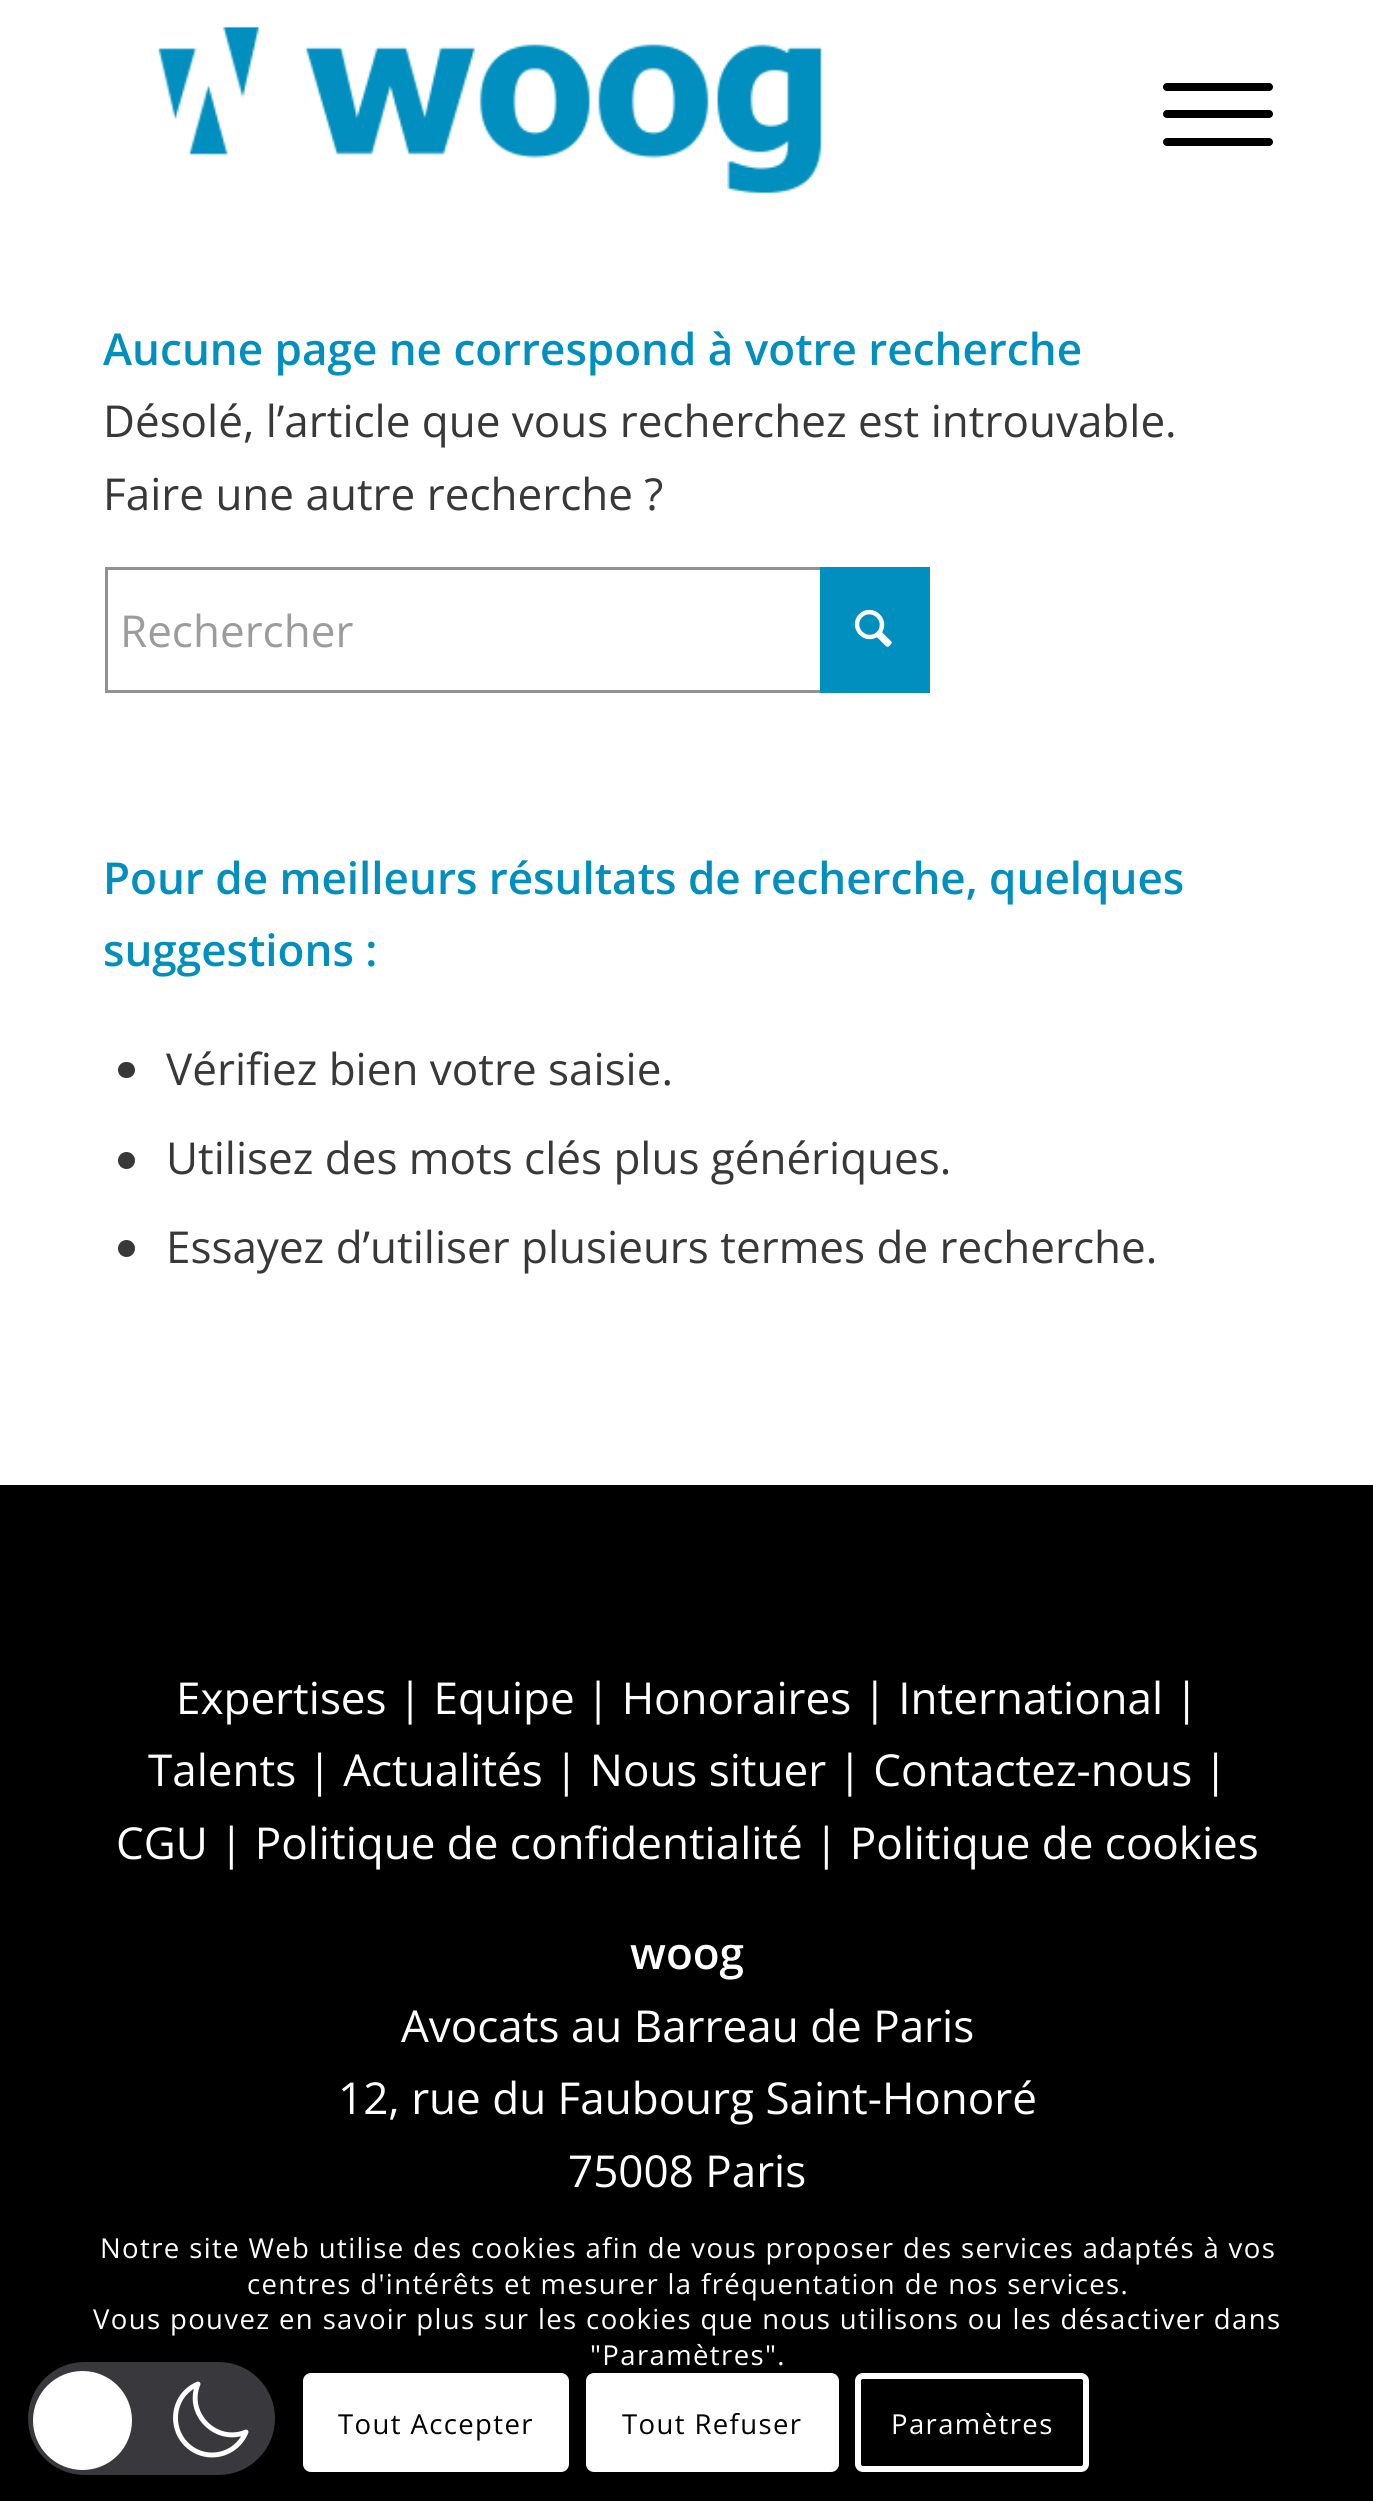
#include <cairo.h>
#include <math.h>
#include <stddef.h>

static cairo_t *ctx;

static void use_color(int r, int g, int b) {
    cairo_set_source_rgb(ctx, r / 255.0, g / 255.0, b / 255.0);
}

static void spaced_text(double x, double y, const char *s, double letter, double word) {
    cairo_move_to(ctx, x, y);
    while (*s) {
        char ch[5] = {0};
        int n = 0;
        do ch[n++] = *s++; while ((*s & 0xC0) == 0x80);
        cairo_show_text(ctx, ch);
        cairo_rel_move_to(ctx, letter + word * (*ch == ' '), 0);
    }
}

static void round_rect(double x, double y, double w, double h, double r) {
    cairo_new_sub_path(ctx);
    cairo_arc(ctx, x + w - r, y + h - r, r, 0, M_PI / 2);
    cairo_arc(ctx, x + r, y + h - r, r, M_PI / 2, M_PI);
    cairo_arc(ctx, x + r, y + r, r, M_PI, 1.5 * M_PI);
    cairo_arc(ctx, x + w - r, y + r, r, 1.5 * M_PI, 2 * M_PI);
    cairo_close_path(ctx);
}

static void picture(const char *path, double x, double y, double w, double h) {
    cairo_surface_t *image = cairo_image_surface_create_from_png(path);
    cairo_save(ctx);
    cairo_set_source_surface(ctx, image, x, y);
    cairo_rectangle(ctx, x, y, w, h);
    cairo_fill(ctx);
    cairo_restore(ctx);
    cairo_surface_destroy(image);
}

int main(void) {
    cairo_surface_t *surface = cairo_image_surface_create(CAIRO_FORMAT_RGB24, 1373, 2501);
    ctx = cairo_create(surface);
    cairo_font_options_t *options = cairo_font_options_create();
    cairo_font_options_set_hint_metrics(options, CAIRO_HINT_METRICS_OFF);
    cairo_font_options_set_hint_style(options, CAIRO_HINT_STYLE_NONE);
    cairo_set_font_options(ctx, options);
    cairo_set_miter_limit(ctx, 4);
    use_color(255, 255, 255);
    cairo_paint(ctx);
    picture("img1.png", 158, 26, 664, 168);
    use_color(0, 0, 0);
    round_rect(1163, 110, 110, 8, 4);
    cairo_fill(ctx);
    round_rect(1163, 83, 110, 8, 4);
    cairo_fill(ctx);
    round_rect(1163, 138, 110, 8, 4);
    cairo_fill(ctx);
    cairo_select_font_face(ctx, "Open Sans SemiBold", CAIRO_FONT_SLANT_NORMAL, CAIRO_FONT_WEIGHT_NORMAL);
    cairo_set_font_size(ctx, 44);
    use_color(0, 143, 190);
    cairo_move_to(ctx, 103, 365);
    cairo_show_text(ctx, "Aucune page ne correspond à votre recherche");
    cairo_select_font_face(ctx, "Open Sans", CAIRO_FONT_SLANT_NORMAL, CAIRO_FONT_WEIGHT_NORMAL);
    use_color(56, 56, 56);
    cairo_move_to(ctx, 103, 437);
    cairo_show_text(ctx, "Désolé, l’article que vous recherchez est introuvable.");
    cairo_move_to(ctx, 103, 510);
    cairo_show_text(ctx, "Faire une autre recherche ?");
    cairo_rectangle(ctx, 106.5, 568.5, 822, 123);
    use_color(145, 145, 145);
    cairo_set_line_width(ctx, 3);
    cairo_stroke(ctx);
    use_color(0, 143, 190);
    cairo_rectangle(ctx, 820, 567, 110, 126);
    cairo_fill(ctx);
    use_color(156, 156, 156);
    cairo_move_to(ctx, 120, 647);
    cairo_show_text(ctx, "Rechercher");
    picture("img2.png", 854, 609, 38, 38);
    cairo_select_font_face(ctx, "Open Sans SemiBold", CAIRO_FONT_SLANT_NORMAL, CAIRO_FONT_WEIGHT_NORMAL);
    use_color(0, 143, 190);
    cairo_move_to(ctx, 103, 894);
    cairo_show_text(ctx, "Pour de meilleurs résultats de recherche, quelques");
    cairo_move_to(ctx, 103, 966);
    cairo_show_text(ctx, "suggestions :");
    use_color(56, 56, 56);
    round_rect(118, 1062, 17, 16, 8);
    cairo_fill(ctx);
    cairo_select_font_face(ctx, "Open Sans", CAIRO_FONT_SLANT_NORMAL, CAIRO_FONT_WEIGHT_NORMAL);
    cairo_move_to(ctx, 166, 1085);
    cairo_show_text(ctx, "Vérifiez bien votre saisie.");
    cairo_new_path(ctx);
    cairo_arc(ctx, 126.5, 1160.5, 8.5, 0, 2 * M_PI);
    cairo_fill(ctx);
    cairo_move_to(ctx, 166, 1174);
    cairo_show_text(ctx, "Utilisez des mots clés plus génériques.");
    cairo_new_path(ctx);
    cairo_arc(ctx, 126.5, 1248.5, 8.5, 0, 2 * M_PI);
    cairo_fill(ctx);
    cairo_move_to(ctx, 166, 1263);
    cairo_show_text(ctx, "Essayez d’utiliser plusieurs termes de recherche.");
    use_color(0, 0, 0);
    cairo_rectangle(ctx, 0, 1485, 1373, 1016);
    cairo_fill(ctx);
    use_color(255, 255, 255);
    cairo_move_to(ctx, 176, 1714);
    cairo_show_text(ctx, "Expertises | Equipe | Honoraires | International |");
    cairo_move_to(ctx, 148, 1786);
    cairo_show_text(ctx, "Talents | Actualités | Nous situer | Contactez-nous |");
    cairo_move_to(ctx, 116, 1859);
    cairo_show_text(ctx, "CGU | Politique de confidentialité | Politique de cookies");
    cairo_select_font_face(ctx, "Open Sans SemiBold", CAIRO_FONT_SLANT_NORMAL, CAIRO_FONT_WEIGHT_NORMAL);
    cairo_move_to(ctx, 630, 1969);
    cairo_show_text(ctx, "woog");
    cairo_select_font_face(ctx, "Open Sans", CAIRO_FONT_SLANT_NORMAL, CAIRO_FONT_WEIGHT_NORMAL);
    cairo_move_to(ctx, 401, 2042);
    cairo_show_text(ctx, "Avocats au Barreau de Paris");
    cairo_move_to(ctx, 338, 2114);
    cairo_show_text(ctx, "12, rue du Faubourg Saint-Honoré");
    cairo_move_to(ctx, 568, 2187);
    cairo_show_text(ctx, "75008 Paris");
    cairo_set_font_size(ctx, 27.5);
    spaced_text(100, 2258, "Notre site Web utilise des cookies afin de vous proposer des services adaptés à vos", 1.38, 0);
    spaced_text(247, 2294, "centres d'intérêts et mesurer la fréquentation de nos services.", 1.38, 0);
    spaced_text(93, 2329, "Vous pouvez en savoir plus sur les cookies que nous utilisons ou les désactiver dans", 1.38, 0);
    spaced_text(590, 2365, "\"Paramètres\".", 1.38, 0);
    round_rect(303, 2373, 266, 99, 8);
    cairo_fill(ctx);
    use_color(0, 0, 0);
    spaced_text(338, 2434, "Tout Accepter", 1.38, 0);
    use_color(255, 255, 255);
    round_rect(586, 2373, 253, 99, 8);
    cairo_fill(ctx);
    use_color(0, 0, 0);
    spaced_text(622, 2434, "Tout Refuser", 1.38, 0);
    round_rect(858, 2376, 228, 93, 5);
    use_color(255, 255, 255);
    cairo_set_line_width(ctx, 6);
    cairo_stroke(ctx);
    spaced_text(891, 2434, "Paramètres", 1.38, 0);
    use_color(57, 57, 61);
    round_rect(28, 2362, 247, 113, 56.5);
    cairo_fill(ctx);
    use_color(255, 255, 255);
    cairo_arc(ctx, 82.5, 2420.5, 49.5, 0, 2 * M_PI);
    cairo_fill(ctx);
    cairo_new_path(ctx);
    cairo_move_to(ctx, 246, 2432);
    cairo_curve_to(ctx, 216.5, 2444.5, 185.5, 2414, 198, 2384);
    cairo_curve_to(ctx, 184.5, 2389.5, 175.5, 2402.5, 175.5, 2418);
    cairo_curve_to(ctx, 175.5, 2438.5, 192, 2455, 212, 2455);
    cairo_curve_to(ctx, 227.5, 2455, 240.5, 2445.5, 246, 2432);
    cairo_close_path(ctx);
    cairo_set_line_width(ctx, 4.9);
    cairo_set_line_cap(ctx, CAIRO_LINE_CAP_ROUND);
    cairo_set_line_join(ctx, CAIRO_LINE_JOIN_ROUND);
    cairo_stroke(ctx);
    cairo_surface_write_to_png(surface, "result.png");
    cairo_font_options_destroy(options);
    cairo_destroy(ctx);
    cairo_surface_destroy(surface);
    return 0;
}
